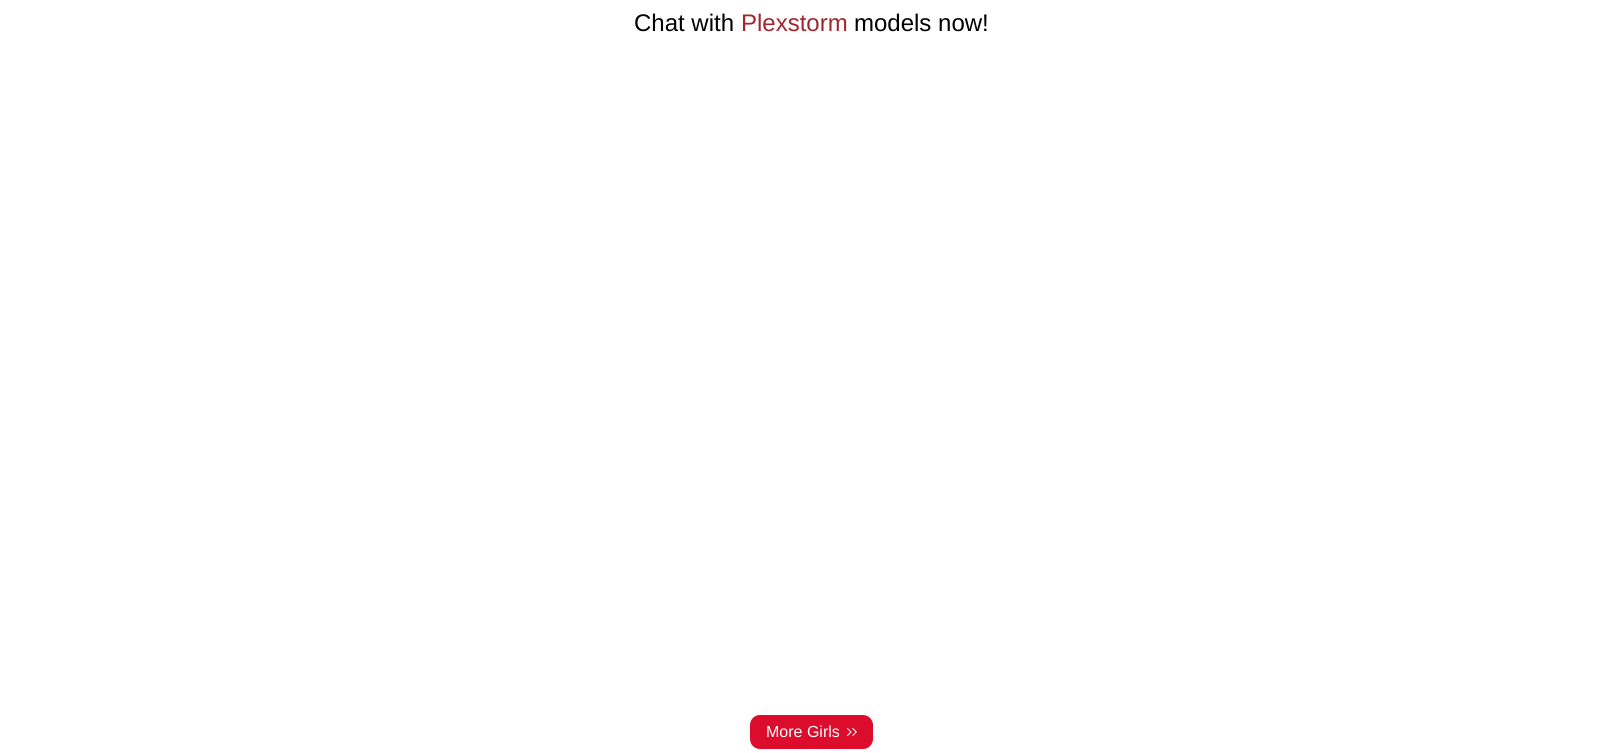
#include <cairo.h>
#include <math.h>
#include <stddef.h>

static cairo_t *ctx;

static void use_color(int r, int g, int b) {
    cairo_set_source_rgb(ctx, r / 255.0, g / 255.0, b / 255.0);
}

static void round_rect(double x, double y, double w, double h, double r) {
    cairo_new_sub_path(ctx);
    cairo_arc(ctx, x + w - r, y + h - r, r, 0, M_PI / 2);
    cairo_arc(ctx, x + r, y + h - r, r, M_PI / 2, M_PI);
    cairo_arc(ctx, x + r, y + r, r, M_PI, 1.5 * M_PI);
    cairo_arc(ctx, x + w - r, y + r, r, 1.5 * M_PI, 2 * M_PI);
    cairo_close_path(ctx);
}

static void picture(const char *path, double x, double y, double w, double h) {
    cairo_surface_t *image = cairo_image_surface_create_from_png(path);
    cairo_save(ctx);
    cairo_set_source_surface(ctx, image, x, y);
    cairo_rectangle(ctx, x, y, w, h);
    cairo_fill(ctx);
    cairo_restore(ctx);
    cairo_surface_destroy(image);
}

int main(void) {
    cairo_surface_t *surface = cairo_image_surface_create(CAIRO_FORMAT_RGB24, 1623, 753);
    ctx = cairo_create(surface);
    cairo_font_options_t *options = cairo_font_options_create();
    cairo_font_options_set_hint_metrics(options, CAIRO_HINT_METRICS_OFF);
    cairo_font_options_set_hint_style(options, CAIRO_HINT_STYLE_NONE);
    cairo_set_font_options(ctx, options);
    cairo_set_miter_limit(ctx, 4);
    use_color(255, 255, 255);
    cairo_paint(ctx);
    cairo_select_font_face(ctx, "Liberation Sans", CAIRO_FONT_SLANT_NORMAL, CAIRO_FONT_WEIGHT_NORMAL);
    cairo_set_font_size(ctx, 24);
    use_color(0, 0, 0);
    cairo_move_to(ctx, 634, 31);
    cairo_show_text(ctx, "Chat with");
    use_color(162, 38, 46);
    cairo_move_to(ctx, 741, 31);
    cairo_show_text(ctx, "Plexstorm");
    use_color(0, 0, 0);
    cairo_move_to(ctx, 854, 31);
    cairo_show_text(ctx, "models now!");
    use_color(220, 12, 44);
    round_rect(750, 715, 123, 34, 10);
    cairo_fill(ctx);
    cairo_set_font_size(ctx, 16);
    use_color(255, 255, 255);
    cairo_move_to(ctx, 766, 737);
    cairo_show_text(ctx, "More Girls");
    picture("img1.png", 847, 728, 10, 8);
    cairo_surface_write_to_png(surface, "result.png");
    cairo_font_options_destroy(options);
    cairo_destroy(ctx);
    cairo_surface_destroy(surface);
    return 0;
}
